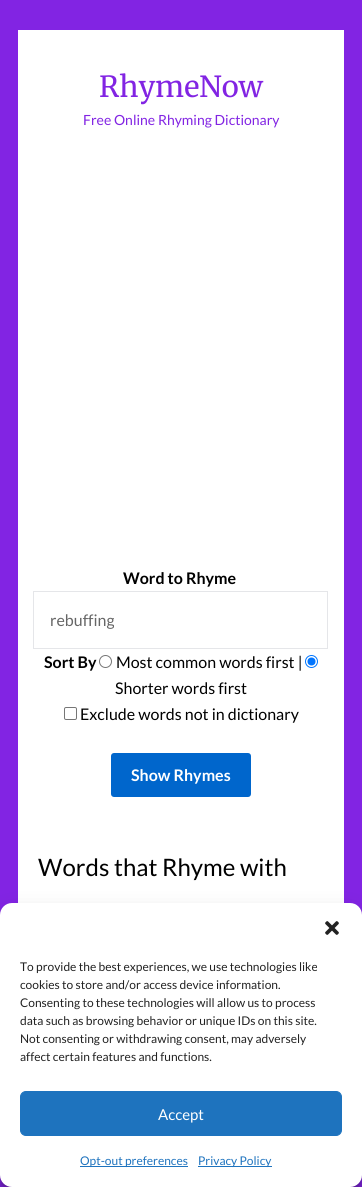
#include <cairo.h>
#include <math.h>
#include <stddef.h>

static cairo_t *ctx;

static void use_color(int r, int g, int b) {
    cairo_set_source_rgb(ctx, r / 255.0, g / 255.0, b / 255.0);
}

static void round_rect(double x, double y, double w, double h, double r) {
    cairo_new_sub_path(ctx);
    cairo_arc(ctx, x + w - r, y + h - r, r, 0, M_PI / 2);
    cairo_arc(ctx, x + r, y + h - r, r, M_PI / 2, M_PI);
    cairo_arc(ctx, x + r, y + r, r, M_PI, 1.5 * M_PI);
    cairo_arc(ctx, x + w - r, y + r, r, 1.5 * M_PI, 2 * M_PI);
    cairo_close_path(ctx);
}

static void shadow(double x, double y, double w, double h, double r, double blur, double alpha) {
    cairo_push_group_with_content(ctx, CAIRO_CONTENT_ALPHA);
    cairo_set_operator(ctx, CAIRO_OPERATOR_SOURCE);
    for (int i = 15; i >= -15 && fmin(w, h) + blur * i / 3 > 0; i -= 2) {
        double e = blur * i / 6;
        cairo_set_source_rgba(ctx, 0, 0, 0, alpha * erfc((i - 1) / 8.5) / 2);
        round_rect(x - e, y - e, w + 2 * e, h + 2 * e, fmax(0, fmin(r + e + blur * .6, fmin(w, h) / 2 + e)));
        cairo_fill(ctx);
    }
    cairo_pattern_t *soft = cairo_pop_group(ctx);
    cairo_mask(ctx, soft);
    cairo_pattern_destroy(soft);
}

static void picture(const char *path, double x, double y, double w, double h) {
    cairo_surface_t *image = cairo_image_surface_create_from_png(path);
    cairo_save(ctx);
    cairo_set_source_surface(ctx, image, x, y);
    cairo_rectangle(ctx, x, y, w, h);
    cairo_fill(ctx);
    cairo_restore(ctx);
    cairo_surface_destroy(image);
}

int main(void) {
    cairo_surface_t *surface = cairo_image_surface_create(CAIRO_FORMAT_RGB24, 362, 1187);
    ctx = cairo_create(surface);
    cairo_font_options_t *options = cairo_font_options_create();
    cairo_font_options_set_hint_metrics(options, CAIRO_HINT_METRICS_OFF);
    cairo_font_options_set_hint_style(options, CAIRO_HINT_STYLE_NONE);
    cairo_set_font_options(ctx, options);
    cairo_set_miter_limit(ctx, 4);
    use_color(130, 36, 227);
    cairo_paint(ctx);
    use_color(255, 255, 255);
    cairo_rectangle(ctx, 18, 30, 326, 873);
    cairo_fill(ctx);
    cairo_select_font_face(ctx, "Merriweather", CAIRO_FONT_SLANT_NORMAL, CAIRO_FONT_WEIGHT_NORMAL);
    cairo_set_font_size(ctx, 29);
    use_color(130, 36, 227);
    cairo_move_to(ctx, 99, 97);
    cairo_show_text(ctx, "RhymeNow");
    cairo_select_font_face(ctx, "Lato", CAIRO_FONT_SLANT_NORMAL, CAIRO_FONT_WEIGHT_NORMAL);
    cairo_set_font_size(ctx, 14);
    cairo_move_to(ctx, 83, 125);
    cairo_show_text(ctx, "Free Online Rhyming Dictionary");
    cairo_select_font_face(ctx, "Lato", CAIRO_FONT_SLANT_NORMAL, CAIRO_FONT_WEIGHT_BOLD);
    cairo_set_font_size(ctx, 16);
    use_color(0, 0, 0);
    cairo_move_to(ctx, 123, 584);
    cairo_show_text(ctx, "Word to Rhyme");
    cairo_rectangle(ctx, 33.5, 591.5, 294, 57);
    use_color(229, 230, 233);
    cairo_set_line_width(ctx, 1);
    cairo_stroke(ctx);
    cairo_select_font_face(ctx, "Lato", CAIRO_FONT_SLANT_NORMAL, CAIRO_FONT_WEIGHT_NORMAL);
    use_color(102, 102, 102);
    cairo_move_to(ctx, 50, 626);
    cairo_show_text(ctx, "rebuffing");
    cairo_select_font_face(ctx, "Lato", CAIRO_FONT_SLANT_NORMAL, CAIRO_FONT_WEIGHT_BOLD);
    use_color(0, 0, 0);
    cairo_move_to(ctx, 44, 668);
    cairo_show_text(ctx, "Sort By");
    cairo_new_path(ctx);
    cairo_arc(ctx, 105.5, 661.5, 6, 0, 2 * M_PI);
    use_color(118, 118, 118);
    cairo_stroke(ctx);
    cairo_select_font_face(ctx, "Lato", CAIRO_FONT_SLANT_NORMAL, CAIRO_FONT_WEIGHT_NORMAL);
    use_color(0, 0, 0);
    cairo_move_to(ctx, 116, 668);
    cairo_show_text(ctx, "Most common words first |");
    cairo_new_path(ctx);
    cairo_arc(ctx, 311.5, 661.5, 6, 0, 2 * M_PI);
    use_color(0, 117, 255);
    cairo_stroke(ctx);
    cairo_arc(ctx, 311.5, 661.5, 4, 0, 2 * M_PI);
    cairo_fill(ctx);
    use_color(0, 0, 0);
    cairo_move_to(ctx, 115, 694);
    cairo_show_text(ctx, "Shorter words first");
    round_rect(64.5, 707.5, 12, 12, 1.5);
    use_color(118, 118, 118);
    cairo_stroke(ctx);
    use_color(0, 0, 0);
    cairo_move_to(ctx, 80, 720);
    cairo_show_text(ctx, "Exclude words not in dictionary");
    use_color(0, 102, 204);
    round_rect(111, 753, 140, 44, 3);
    cairo_fill(ctx);
    cairo_select_font_face(ctx, "Lato", CAIRO_FONT_SLANT_NORMAL, CAIRO_FONT_WEIGHT_BOLD);
    use_color(255, 255, 255);
    cairo_move_to(ctx, 131, 781);
    cairo_show_text(ctx, "Show Rhymes");
    cairo_select_font_face(ctx, "Lato", CAIRO_FONT_SLANT_NORMAL, CAIRO_FONT_WEIGHT_NORMAL);
    cairo_set_font_size(ctx, 24);
    use_color(0, 0, 0);
    cairo_move_to(ctx, 38, 876);
    cairo_show_text(ctx, "Words that Rhyme with");
    use_color(0, 0, 0);
    shadow(0, 909, 362, 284, 12, 3, 0.23);
    shadow(0, 913, 362, 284, 12, 10, 0.19);
    use_color(255, 255, 255);
    round_rect(0, 903, 362, 284, 12);
    cairo_fill(ctx);
    picture("img1.png", 325, 921, 14, 14);
    cairo_set_font_size(ctx, 12);
    use_color(34, 34, 34);
    cairo_move_to(ctx, 20, 971);
    cairo_show_text(ctx, "To provide the best experiences, we use technologies like");
    cairo_move_to(ctx, 20, 989);
    cairo_show_text(ctx, "cookies to store and/or access device information.");
    cairo_move_to(ctx, 20, 1007);
    cairo_show_text(ctx, "Consenting to these technologies will allow us to process");
    cairo_move_to(ctx, 20, 1025);
    cairo_show_text(ctx, "data such as browsing behavior or unique IDs on this site.");
    cairo_move_to(ctx, 20, 1043);
    cairo_show_text(ctx, "Not consenting or withdrawing consent, may adversely");
    cairo_move_to(ctx, 20, 1061);
    cairo_show_text(ctx, "affect certain features and functions.");
    use_color(30, 115, 190);
    round_rect(20.5, 1091.5, 321, 44, 5.5);
    cairo_fill_preserve(ctx);
    cairo_stroke(ctx);
    cairo_set_font_size(ctx, 15);
    use_color(255, 255, 255);
    cairo_move_to(ctx, 158, 1120);
    cairo_show_text(ctx, "Accept");
    use_color(30, 115, 190);
    cairo_rectangle(ctx, 80, 1166, 108, 1);
    cairo_fill(ctx);
    cairo_set_font_size(ctx, 12);
    cairo_move_to(ctx, 80, 1165);
    cairo_show_text(ctx, "Opt-out preferences");
    cairo_rectangle(ctx, 198, 1166, 74, 1);
    cairo_fill(ctx);
    cairo_move_to(ctx, 198, 1165);
    cairo_show_text(ctx, "Privacy Policy");
    cairo_surface_write_to_png(surface, "result.png");
    cairo_font_options_destroy(options);
    cairo_destroy(ctx);
    cairo_surface_destroy(surface);
    return 0;
}
